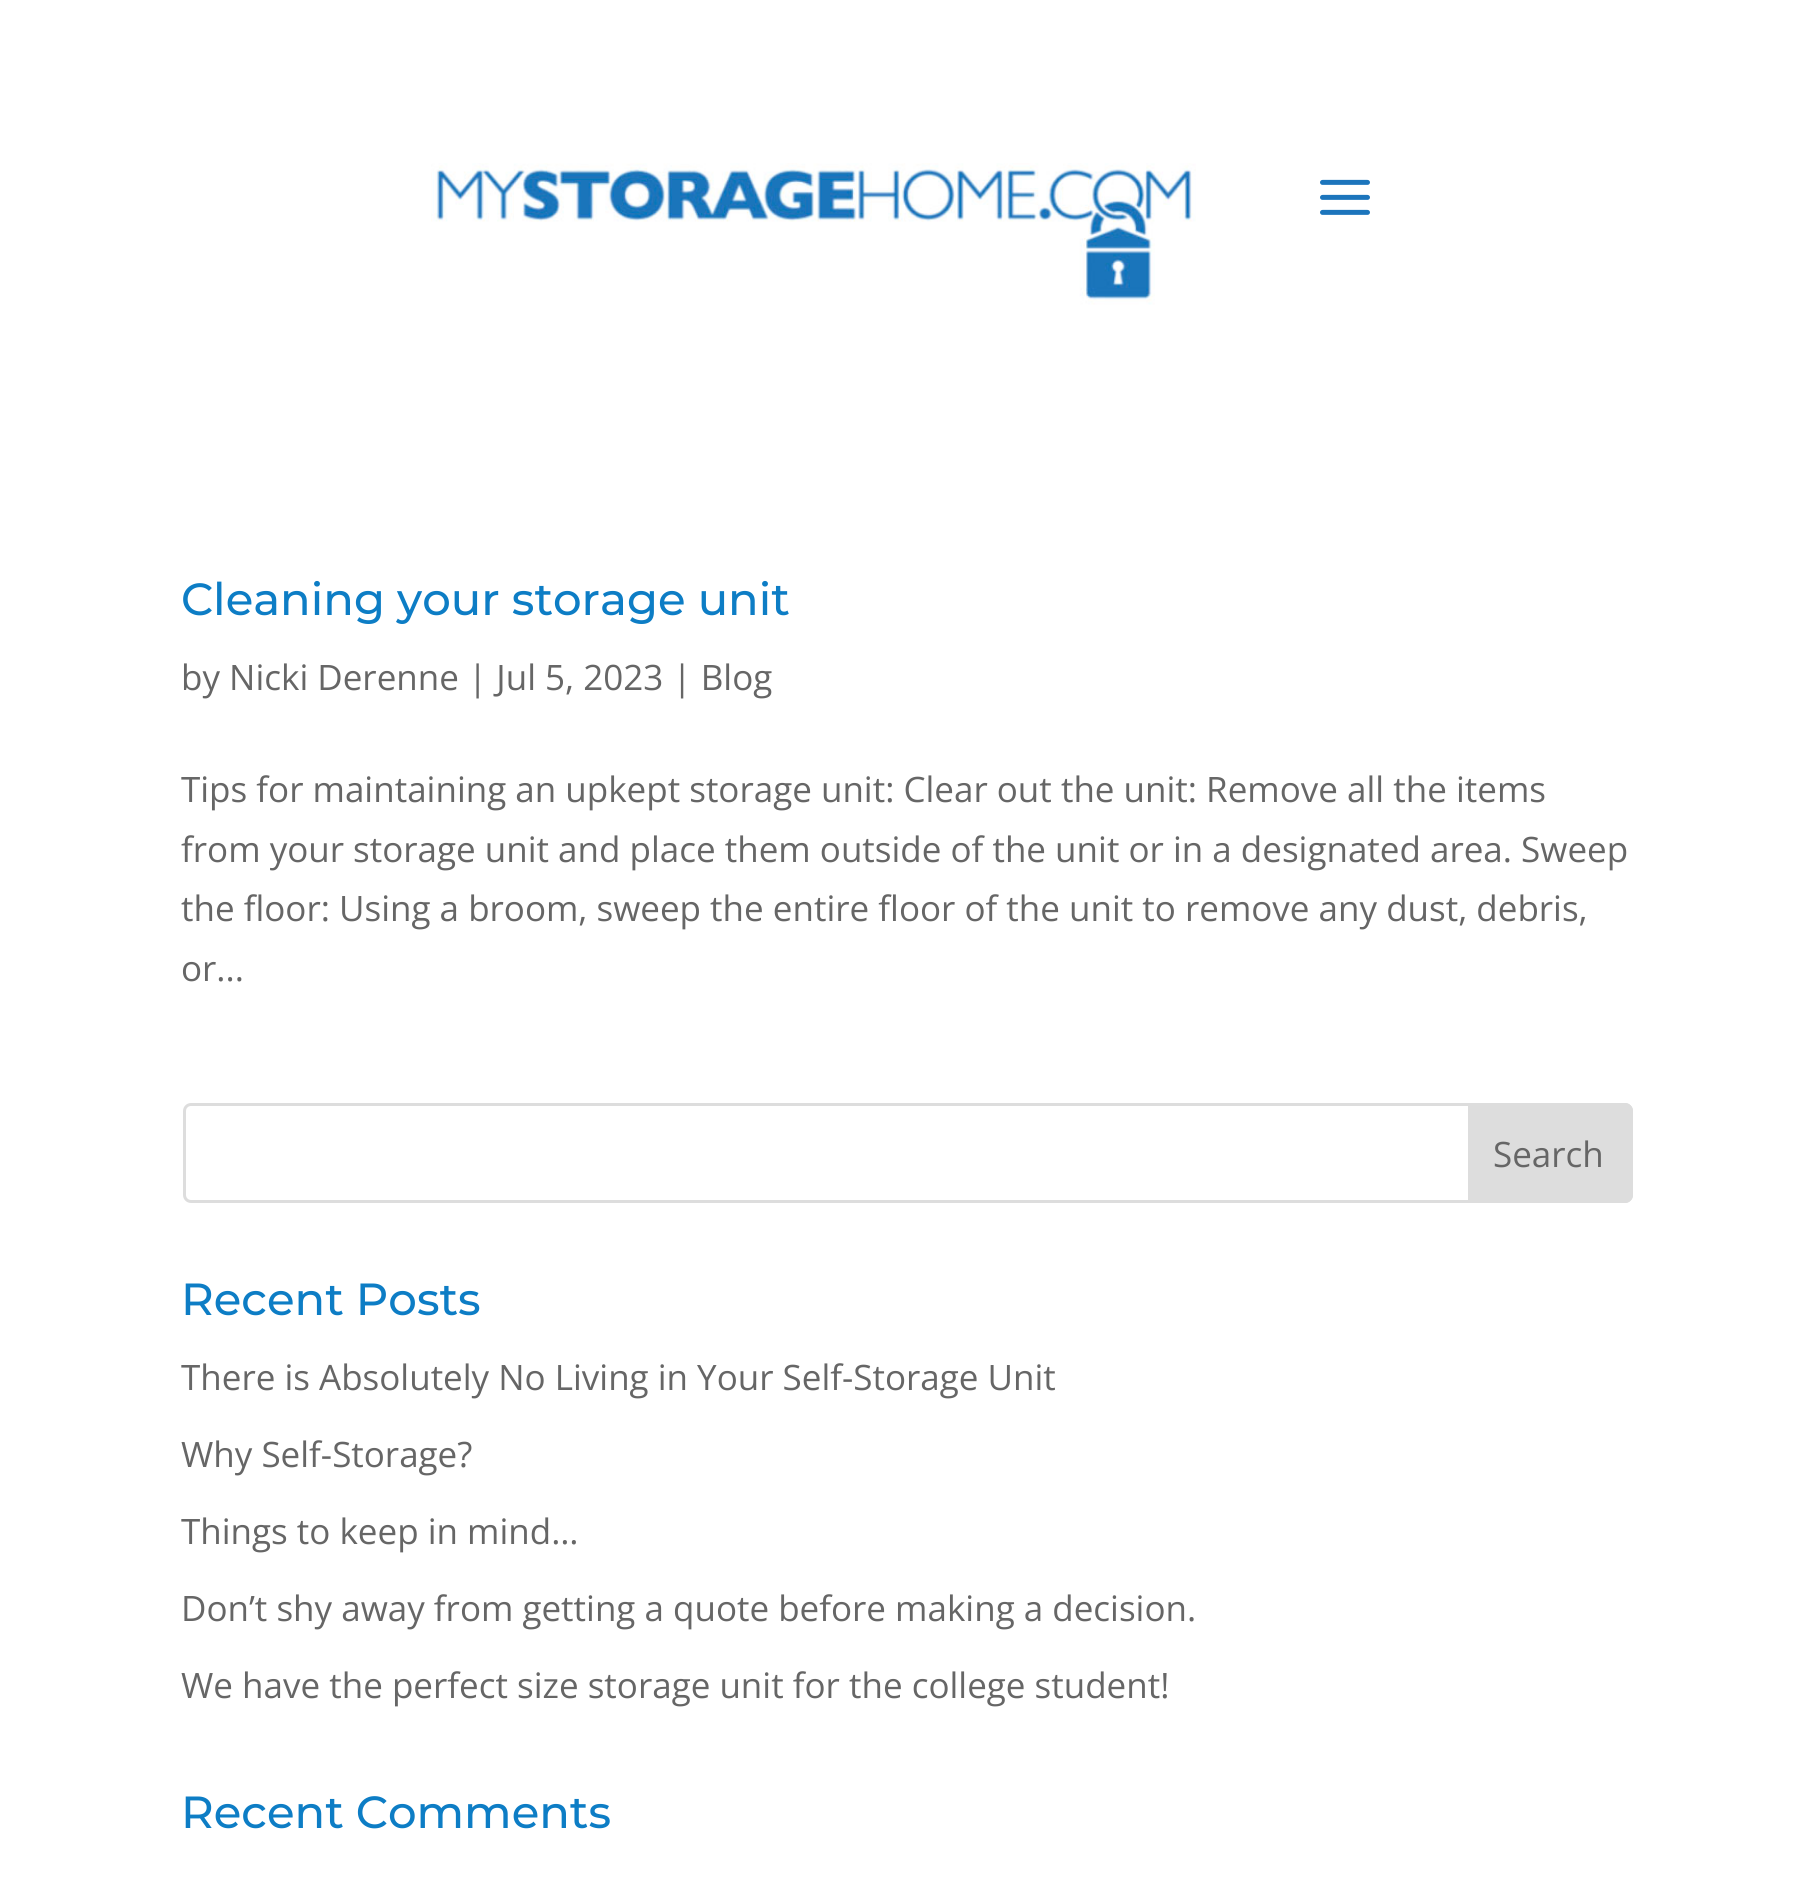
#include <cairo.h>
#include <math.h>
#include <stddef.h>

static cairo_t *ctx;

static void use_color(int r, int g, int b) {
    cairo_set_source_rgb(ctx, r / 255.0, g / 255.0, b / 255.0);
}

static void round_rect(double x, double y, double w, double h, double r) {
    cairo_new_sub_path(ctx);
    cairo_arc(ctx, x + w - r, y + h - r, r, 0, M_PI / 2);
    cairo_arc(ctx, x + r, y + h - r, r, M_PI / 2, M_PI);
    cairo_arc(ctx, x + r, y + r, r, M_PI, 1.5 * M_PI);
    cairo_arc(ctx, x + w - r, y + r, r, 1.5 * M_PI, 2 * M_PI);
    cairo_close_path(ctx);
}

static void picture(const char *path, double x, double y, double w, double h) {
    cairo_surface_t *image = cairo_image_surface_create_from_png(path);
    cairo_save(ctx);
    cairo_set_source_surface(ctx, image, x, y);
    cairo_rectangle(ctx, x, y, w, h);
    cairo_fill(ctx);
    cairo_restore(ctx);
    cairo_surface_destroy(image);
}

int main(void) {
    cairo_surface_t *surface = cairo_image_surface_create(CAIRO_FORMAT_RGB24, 1811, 1897);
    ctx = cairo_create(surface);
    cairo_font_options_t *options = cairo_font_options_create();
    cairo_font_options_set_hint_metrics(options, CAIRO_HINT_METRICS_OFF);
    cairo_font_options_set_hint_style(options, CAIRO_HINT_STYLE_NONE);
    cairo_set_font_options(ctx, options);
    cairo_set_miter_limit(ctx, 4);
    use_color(255, 255, 255);
    cairo_paint(ctx);
    picture("img1.png", 431, 163, 765, 142);
    picture("img2.png", 1320, 179, 50, 36);
    cairo_select_font_face(ctx, "Montserrat Medium", CAIRO_FONT_SLANT_NORMAL, CAIRO_FONT_WEIGHT_NORMAL);
    cairo_set_font_size(ctx, 45);
    use_color(13, 125, 197);
    cairo_move_to(ctx, 181, 615);
    cairo_show_text(ctx, "Cleaning your storage unit");
    cairo_select_font_face(ctx, "Open Sans", CAIRO_FONT_SLANT_NORMAL, CAIRO_FONT_WEIGHT_NORMAL);
    cairo_set_font_size(ctx, 35);
    use_color(102, 102, 102);
    cairo_move_to(ctx, 181, 690);
    cairo_show_text(ctx, "by Nicki Derenne | Jul 5, 2023 | Blog");
    cairo_move_to(ctx, 181, 802);
    cairo_show_text(ctx, "Tips for maintaining an upkept storage unit: Clear out the unit: Remove all the items");
    cairo_move_to(ctx, 181, 862);
    cairo_show_text(ctx, "from your storage unit and place them outside of the unit or in a designated area. Sweep");
    cairo_move_to(ctx, 181, 921);
    cairo_show_text(ctx, "the floor: Using a broom, sweep the entire floor of the unit to remove any dust, debris,");
    cairo_move_to(ctx, 181, 981);
    cairo_show_text(ctx, "or...");
    round_rect(184.5, 1104.5, 1447, 97, 6.5);
    use_color(221, 221, 221);
    cairo_set_line_width(ctx, 3);
    cairo_stroke(ctx);
    cairo_new_path(ctx);
    cairo_move_to(ctx, 1469.5, 1104.5);
    cairo_line_to(ctx, 1625, 1104.5);
    cairo_curve_to(ctx, 1628.5, 1104.5, 1631.5, 1107.5, 1631.5, 1111);
    cairo_line_to(ctx, 1631.5, 1195);
    cairo_curve_to(ctx, 1631.5, 1198.5, 1628.5, 1201.5, 1625, 1201.5);
    cairo_line_to(ctx, 1469.5, 1201.5);
    cairo_close_path(ctx);
    cairo_fill_preserve(ctx);
    cairo_stroke(ctx);
    use_color(102, 102, 102);
    cairo_move_to(ctx, 1493, 1167);
    cairo_show_text(ctx, "Search");
    cairo_select_font_face(ctx, "Montserrat Medium", CAIRO_FONT_SLANT_NORMAL, CAIRO_FONT_WEIGHT_NORMAL);
    cairo_set_font_size(ctx, 45);
    use_color(13, 125, 197);
    cairo_move_to(ctx, 181, 1315);
    cairo_show_text(ctx, "Recent Posts");
    cairo_select_font_face(ctx, "Open Sans", CAIRO_FONT_SLANT_NORMAL, CAIRO_FONT_WEIGHT_NORMAL);
    cairo_set_font_size(ctx, 35);
    use_color(102, 102, 102);
    cairo_move_to(ctx, 181, 1390);
    cairo_show_text(ctx, "There is Absolutely No Living in Your Self-Storage Unit");
    cairo_move_to(ctx, 181, 1467);
    cairo_show_text(ctx, "Why Self-Storage?");
    cairo_move_to(ctx, 181, 1544);
    cairo_show_text(ctx, "Things to keep in mind…");
    cairo_move_to(ctx, 181, 1621);
    cairo_show_text(ctx, "Don’t shy away from getting a quote before making a decision.");
    cairo_move_to(ctx, 181, 1698);
    cairo_show_text(ctx, "We have the perfect size storage unit for the college student!");
    cairo_select_font_face(ctx, "Montserrat Medium", CAIRO_FONT_SLANT_NORMAL, CAIRO_FONT_WEIGHT_NORMAL);
    cairo_set_font_size(ctx, 45);
    use_color(13, 125, 197);
    cairo_move_to(ctx, 181, 1828);
    cairo_show_text(ctx, "Recent Comments");
    cairo_surface_write_to_png(surface, "result.png");
    cairo_font_options_destroy(options);
    cairo_destroy(ctx);
    cairo_surface_destroy(surface);
    return 0;
}
